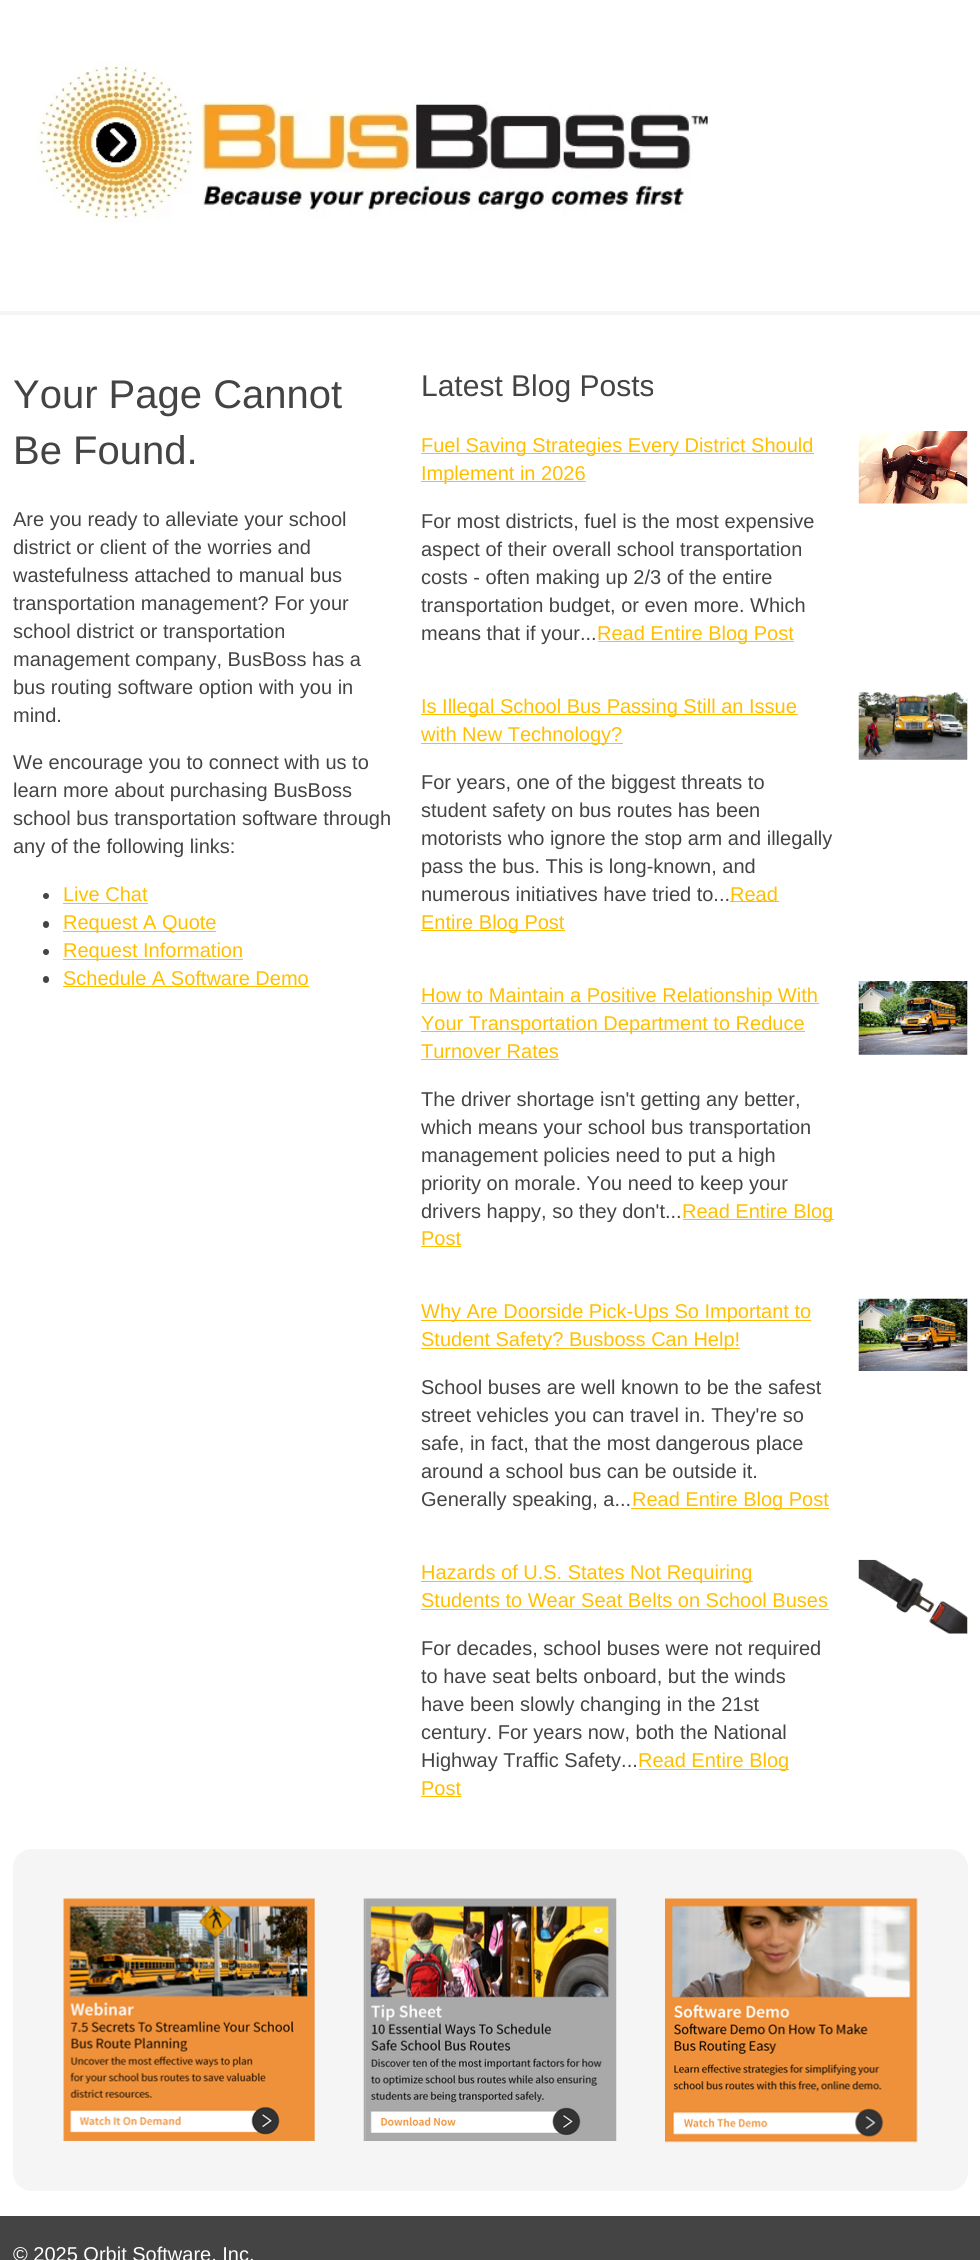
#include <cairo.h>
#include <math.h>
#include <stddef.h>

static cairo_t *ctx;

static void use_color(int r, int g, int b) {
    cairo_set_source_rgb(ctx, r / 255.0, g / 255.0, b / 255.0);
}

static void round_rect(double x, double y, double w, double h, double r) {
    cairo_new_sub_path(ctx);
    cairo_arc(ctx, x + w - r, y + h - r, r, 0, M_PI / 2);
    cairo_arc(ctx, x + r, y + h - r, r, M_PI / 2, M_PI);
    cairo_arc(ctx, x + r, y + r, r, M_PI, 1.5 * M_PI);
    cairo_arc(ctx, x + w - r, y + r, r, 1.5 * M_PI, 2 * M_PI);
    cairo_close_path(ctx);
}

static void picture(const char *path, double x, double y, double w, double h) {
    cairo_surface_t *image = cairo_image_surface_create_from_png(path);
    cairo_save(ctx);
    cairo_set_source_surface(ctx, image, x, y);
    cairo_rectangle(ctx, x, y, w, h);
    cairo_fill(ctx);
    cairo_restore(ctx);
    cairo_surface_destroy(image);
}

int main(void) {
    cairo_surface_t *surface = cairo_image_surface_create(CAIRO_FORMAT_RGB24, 980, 2260);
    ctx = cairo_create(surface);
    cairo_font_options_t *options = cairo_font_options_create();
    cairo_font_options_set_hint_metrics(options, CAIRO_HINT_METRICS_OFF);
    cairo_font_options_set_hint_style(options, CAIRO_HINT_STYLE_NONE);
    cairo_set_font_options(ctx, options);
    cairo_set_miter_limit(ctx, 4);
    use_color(255, 255, 255);
    cairo_paint(ctx);
    use_color(244, 244, 244);
    cairo_rectangle(ctx, 0, 311, 980, 4);
    cairo_fill(ctx);
    picture("img1.png", 37, 62, 671, 161);
    cairo_select_font_face(ctx, "Liberation Sans", CAIRO_FONT_SLANT_NORMAL, CAIRO_FONT_WEIGHT_NORMAL);
    cairo_set_font_size(ctx, 40);
    use_color(68, 68, 68);
    cairo_move_to(ctx, 13, 408);
    cairo_show_text(ctx, "Your Page Cannot");
    cairo_move_to(ctx, 13, 464);
    cairo_show_text(ctx, "Be Found.");
    cairo_set_font_size(ctx, 20);
    cairo_move_to(ctx, 13, 526);
    cairo_show_text(ctx, "Are you ready to alleviate your school");
    cairo_move_to(ctx, 13, 554);
    cairo_show_text(ctx, "district or client of the worries and");
    cairo_move_to(ctx, 13, 582);
    cairo_show_text(ctx, "wastefulness attached to manual bus");
    cairo_move_to(ctx, 13, 610);
    cairo_show_text(ctx, "transportation management? For your");
    cairo_move_to(ctx, 13, 638);
    cairo_show_text(ctx, "school district or transportation");
    cairo_move_to(ctx, 13, 666);
    cairo_show_text(ctx, "management company, BusBoss has a");
    cairo_move_to(ctx, 13, 694);
    cairo_show_text(ctx, "bus routing software option with you in");
    cairo_move_to(ctx, 13, 722);
    cairo_show_text(ctx, "mind.");
    cairo_move_to(ctx, 13, 769);
    cairo_show_text(ctx, "We encourage you to connect with us to");
    cairo_move_to(ctx, 13, 797);
    cairo_show_text(ctx, "learn more about purchasing BusBoss");
    cairo_move_to(ctx, 13, 825);
    cairo_show_text(ctx, "school bus transportation software through");
    cairo_move_to(ctx, 13, 853);
    cairo_show_text(ctx, "any of the following links:");
    cairo_new_path(ctx);
    cairo_arc(ctx, 46, 896, 3, 0, 2 * M_PI);
    cairo_fill(ctx);
    use_color(255, 191, 0);
    cairo_move_to(ctx, 63, 901);
    cairo_show_text(ctx, "Live Chat");
    cairo_rectangle(ctx, 63, 903, 85, 1);
    cairo_fill(ctx);
    use_color(68, 68, 68);
    round_rect(43, 921, 6, 7, 3);
    cairo_fill(ctx);
    use_color(255, 191, 0);
    cairo_rectangle(ctx, 63, 931, 153, 1);
    cairo_fill(ctx);
    cairo_move_to(ctx, 63, 929);
    cairo_show_text(ctx, "Request A Quote");
    use_color(68, 68, 68);
    cairo_new_path(ctx);
    cairo_arc(ctx, 46, 952, 3, 0, 2 * M_PI);
    cairo_fill(ctx);
    use_color(255, 191, 0);
    cairo_rectangle(ctx, 63, 959, 180, 1);
    cairo_fill(ctx);
    cairo_move_to(ctx, 63, 957);
    cairo_show_text(ctx, "Request Information");
    use_color(68, 68, 68);
    round_rect(43, 976, 6, 7, 3);
    cairo_fill(ctx);
    use_color(255, 191, 0);
    cairo_move_to(ctx, 63, 985);
    cairo_show_text(ctx, "Schedule A Software Demo");
    cairo_rectangle(ctx, 63, 986, 246, 1);
    cairo_fill(ctx);
    cairo_set_font_size(ctx, 30);
    use_color(68, 68, 68);
    cairo_move_to(ctx, 421, 396);
    cairo_show_text(ctx, "Latest Blog Posts");
    use_color(255, 191, 0);
    cairo_rectangle(ctx, 421, 453, 393, 1);
    cairo_fill(ctx);
    cairo_set_font_size(ctx, 20);
    cairo_move_to(ctx, 421, 452);
    cairo_show_text(ctx, "Fuel Saving Strategies Every District Should");
    cairo_rectangle(ctx, 421, 481, 165, 1);
    cairo_fill(ctx);
    cairo_move_to(ctx, 421, 480);
    cairo_show_text(ctx, "Implement in 2026");
    use_color(68, 68, 68);
    cairo_move_to(ctx, 421, 528);
    cairo_show_text(ctx, "For most districts, fuel is the most expensive");
    cairo_move_to(ctx, 421, 556);
    cairo_show_text(ctx, "aspect of their overall school transportation");
    cairo_move_to(ctx, 421, 584);
    cairo_show_text(ctx, "costs - often making up 2/3 of the entire");
    cairo_move_to(ctx, 421, 612);
    cairo_show_text(ctx, "transportation budget, or even more. Which");
    cairo_move_to(ctx, 421, 640);
    cairo_show_text(ctx, "means that if your...");
    use_color(255, 191, 0);
    cairo_rectangle(ctx, 598, 641, 196, 1);
    cairo_fill(ctx);
    cairo_move_to(ctx, 597, 640);
    cairo_show_text(ctx, "Read Entire Blog Post");
    picture("img2.png", 858, 431, 110, 73);
    cairo_rectangle(ctx, 421, 714, 377, 1);
    cairo_fill(ctx);
    cairo_move_to(ctx, 421, 713);
    cairo_show_text(ctx, "Is Illegal School Bus Passing Still an Issue");
    cairo_rectangle(ctx, 421, 743, 202, 1);
    cairo_fill(ctx);
    cairo_move_to(ctx, 421, 741);
    cairo_show_text(ctx, "with New Technology?");
    use_color(68, 68, 68);
    cairo_move_to(ctx, 421, 789);
    cairo_show_text(ctx, "For years, one of the biggest threats to");
    cairo_move_to(ctx, 421, 817);
    cairo_show_text(ctx, "student safety on bus routes has been");
    cairo_move_to(ctx, 421, 845);
    cairo_show_text(ctx, "motorists who ignore the stop arm and illegally");
    cairo_move_to(ctx, 421, 873);
    cairo_show_text(ctx, "pass the bus. This is long-known, and");
    cairo_move_to(ctx, 421, 901);
    cairo_show_text(ctx, "numerous initiatives have tried to...");
    use_color(255, 191, 0);
    cairo_rectangle(ctx, 730, 901, 49, 1);
    cairo_fill(ctx);
    cairo_move_to(ctx, 730, 901);
    cairo_show_text(ctx, "Read");
    cairo_rectangle(ctx, 421, 930, 144, 1);
    cairo_fill(ctx);
    cairo_move_to(ctx, 421, 929);
    cairo_show_text(ctx, "Entire Blog Post");
    picture("img3.png", 858, 692, 110, 68);
    cairo_rectangle(ctx, 421, 1003, 398, 1);
    cairo_fill(ctx);
    cairo_move_to(ctx, 421, 1002);
    cairo_show_text(ctx, "How to Maintain a Positive Relationship With");
    cairo_rectangle(ctx, 421, 1031, 384, 1);
    cairo_fill(ctx);
    cairo_move_to(ctx, 421, 1030);
    cairo_show_text(ctx, "Your Transportation Department to Reduce");
    cairo_move_to(ctx, 421, 1058);
    cairo_show_text(ctx, "Turnover Rates");
    cairo_rectangle(ctx, 421, 1059, 138, 1);
    cairo_fill(ctx);
    use_color(68, 68, 68);
    cairo_move_to(ctx, 421, 1106);
    cairo_show_text(ctx, "The driver shortage isn't getting any better,");
    cairo_move_to(ctx, 421, 1134);
    cairo_show_text(ctx, "which means your school bus transportation");
    cairo_move_to(ctx, 421, 1162);
    cairo_show_text(ctx, "management policies need to put a high");
    cairo_move_to(ctx, 421, 1190);
    cairo_show_text(ctx, "priority on morale. You need to keep your");
    cairo_move_to(ctx, 421, 1218);
    cairo_show_text(ctx, "drivers happy, so they don't...");
    use_color(255, 191, 0);
    cairo_rectangle(ctx, 683, 1219, 151, 1);
    cairo_fill(ctx);
    cairo_move_to(ctx, 682, 1218);
    cairo_show_text(ctx, "Read Entire Blog");
    cairo_move_to(ctx, 421, 1245);
    cairo_show_text(ctx, "Post");
    cairo_rectangle(ctx, 421, 1246, 40, 1);
    cairo_fill(ctx);
    picture("img4.png", 858, 981, 110, 74);
    cairo_rectangle(ctx, 421, 1320, 390, 1);
    cairo_fill(ctx);
    cairo_move_to(ctx, 421, 1318);
    cairo_show_text(ctx, "Why Are Doorside Pick-Ups So Important to");
    cairo_rectangle(ctx, 421, 1348, 319, 1);
    cairo_fill(ctx);
    cairo_move_to(ctx, 421, 1346);
    cairo_show_text(ctx, "Student Safety? Busboss Can Help!");
    use_color(68, 68, 68);
    cairo_move_to(ctx, 421, 1394);
    cairo_show_text(ctx, "School buses are well known to be the safest");
    cairo_move_to(ctx, 421, 1422);
    cairo_show_text(ctx, "street vehicles you can travel in. They're so");
    cairo_move_to(ctx, 421, 1450);
    cairo_show_text(ctx, "safe, in fact, that the most dangerous place");
    cairo_move_to(ctx, 421, 1478);
    cairo_show_text(ctx, "around a school bus can be outside it.");
    cairo_move_to(ctx, 421, 1506);
    cairo_show_text(ctx, "Generally speaking, a...");
    use_color(255, 191, 0);
    cairo_rectangle(ctx, 631, 1508, 198, 1);
    cairo_fill(ctx);
    cairo_move_to(ctx, 632, 1506);
    cairo_show_text(ctx, "Read Entire Blog Post");
    picture("img5.png", 858, 1298, 110, 73);
    cairo_rectangle(ctx, 421, 1581, 332, 1);
    cairo_fill(ctx);
    cairo_move_to(ctx, 421, 1579);
    cairo_show_text(ctx, "Hazards of U.S. States Not Requiring");
    cairo_move_to(ctx, 421, 1607);
    cairo_show_text(ctx, "Students to Wear Seat Belts on School Buses");
    cairo_rectangle(ctx, 421, 1609, 408, 1);
    cairo_fill(ctx);
    use_color(68, 68, 68);
    cairo_move_to(ctx, 421, 1655);
    cairo_show_text(ctx, "For decades, school buses were not required");
    cairo_move_to(ctx, 421, 1683);
    cairo_show_text(ctx, "to have seat belts onboard, but the winds");
    cairo_move_to(ctx, 421, 1711);
    cairo_show_text(ctx, "have been slowly changing in the 21st");
    cairo_move_to(ctx, 421, 1739);
    cairo_show_text(ctx, "century. For years now, both the National");
    cairo_move_to(ctx, 421, 1767);
    cairo_show_text(ctx, "Highway Traffic Safety...");
    use_color(255, 191, 0);
    cairo_rectangle(ctx, 639, 1769, 150, 1);
    cairo_fill(ctx);
    cairo_move_to(ctx, 638, 1767);
    cairo_show_text(ctx, "Read Entire Blog");
    cairo_move_to(ctx, 421, 1795);
    cairo_show_text(ctx, "Post");
    cairo_rectangle(ctx, 421, 1796, 40, 1);
    cairo_fill(ctx);
    picture("img6.png", 858, 1559, 110, 75);
    use_color(245, 245, 245);
    round_rect(13, 1849, 955, 342, 19);
    cairo_fill(ctx);
    picture("img7.png", 62, 1898, 253, 243);
    picture("img8.png", 363, 1898, 254, 243);
    picture("img9.png", 665, 1898, 253, 245);
    use_color(68, 68, 68);
    cairo_rectangle(ctx, 0, 2216, 980, 44);
    cairo_fill(ctx);
    use_color(255, 255, 255);
    cairo_move_to(ctx, 13, 2261);
    cairo_show_text(ctx, "© 2025 Orbit Software, Inc.");
    cairo_surface_write_to_png(surface, "result.png");
    cairo_font_options_destroy(options);
    cairo_destroy(ctx);
    cairo_surface_destroy(surface);
    return 0;
}
